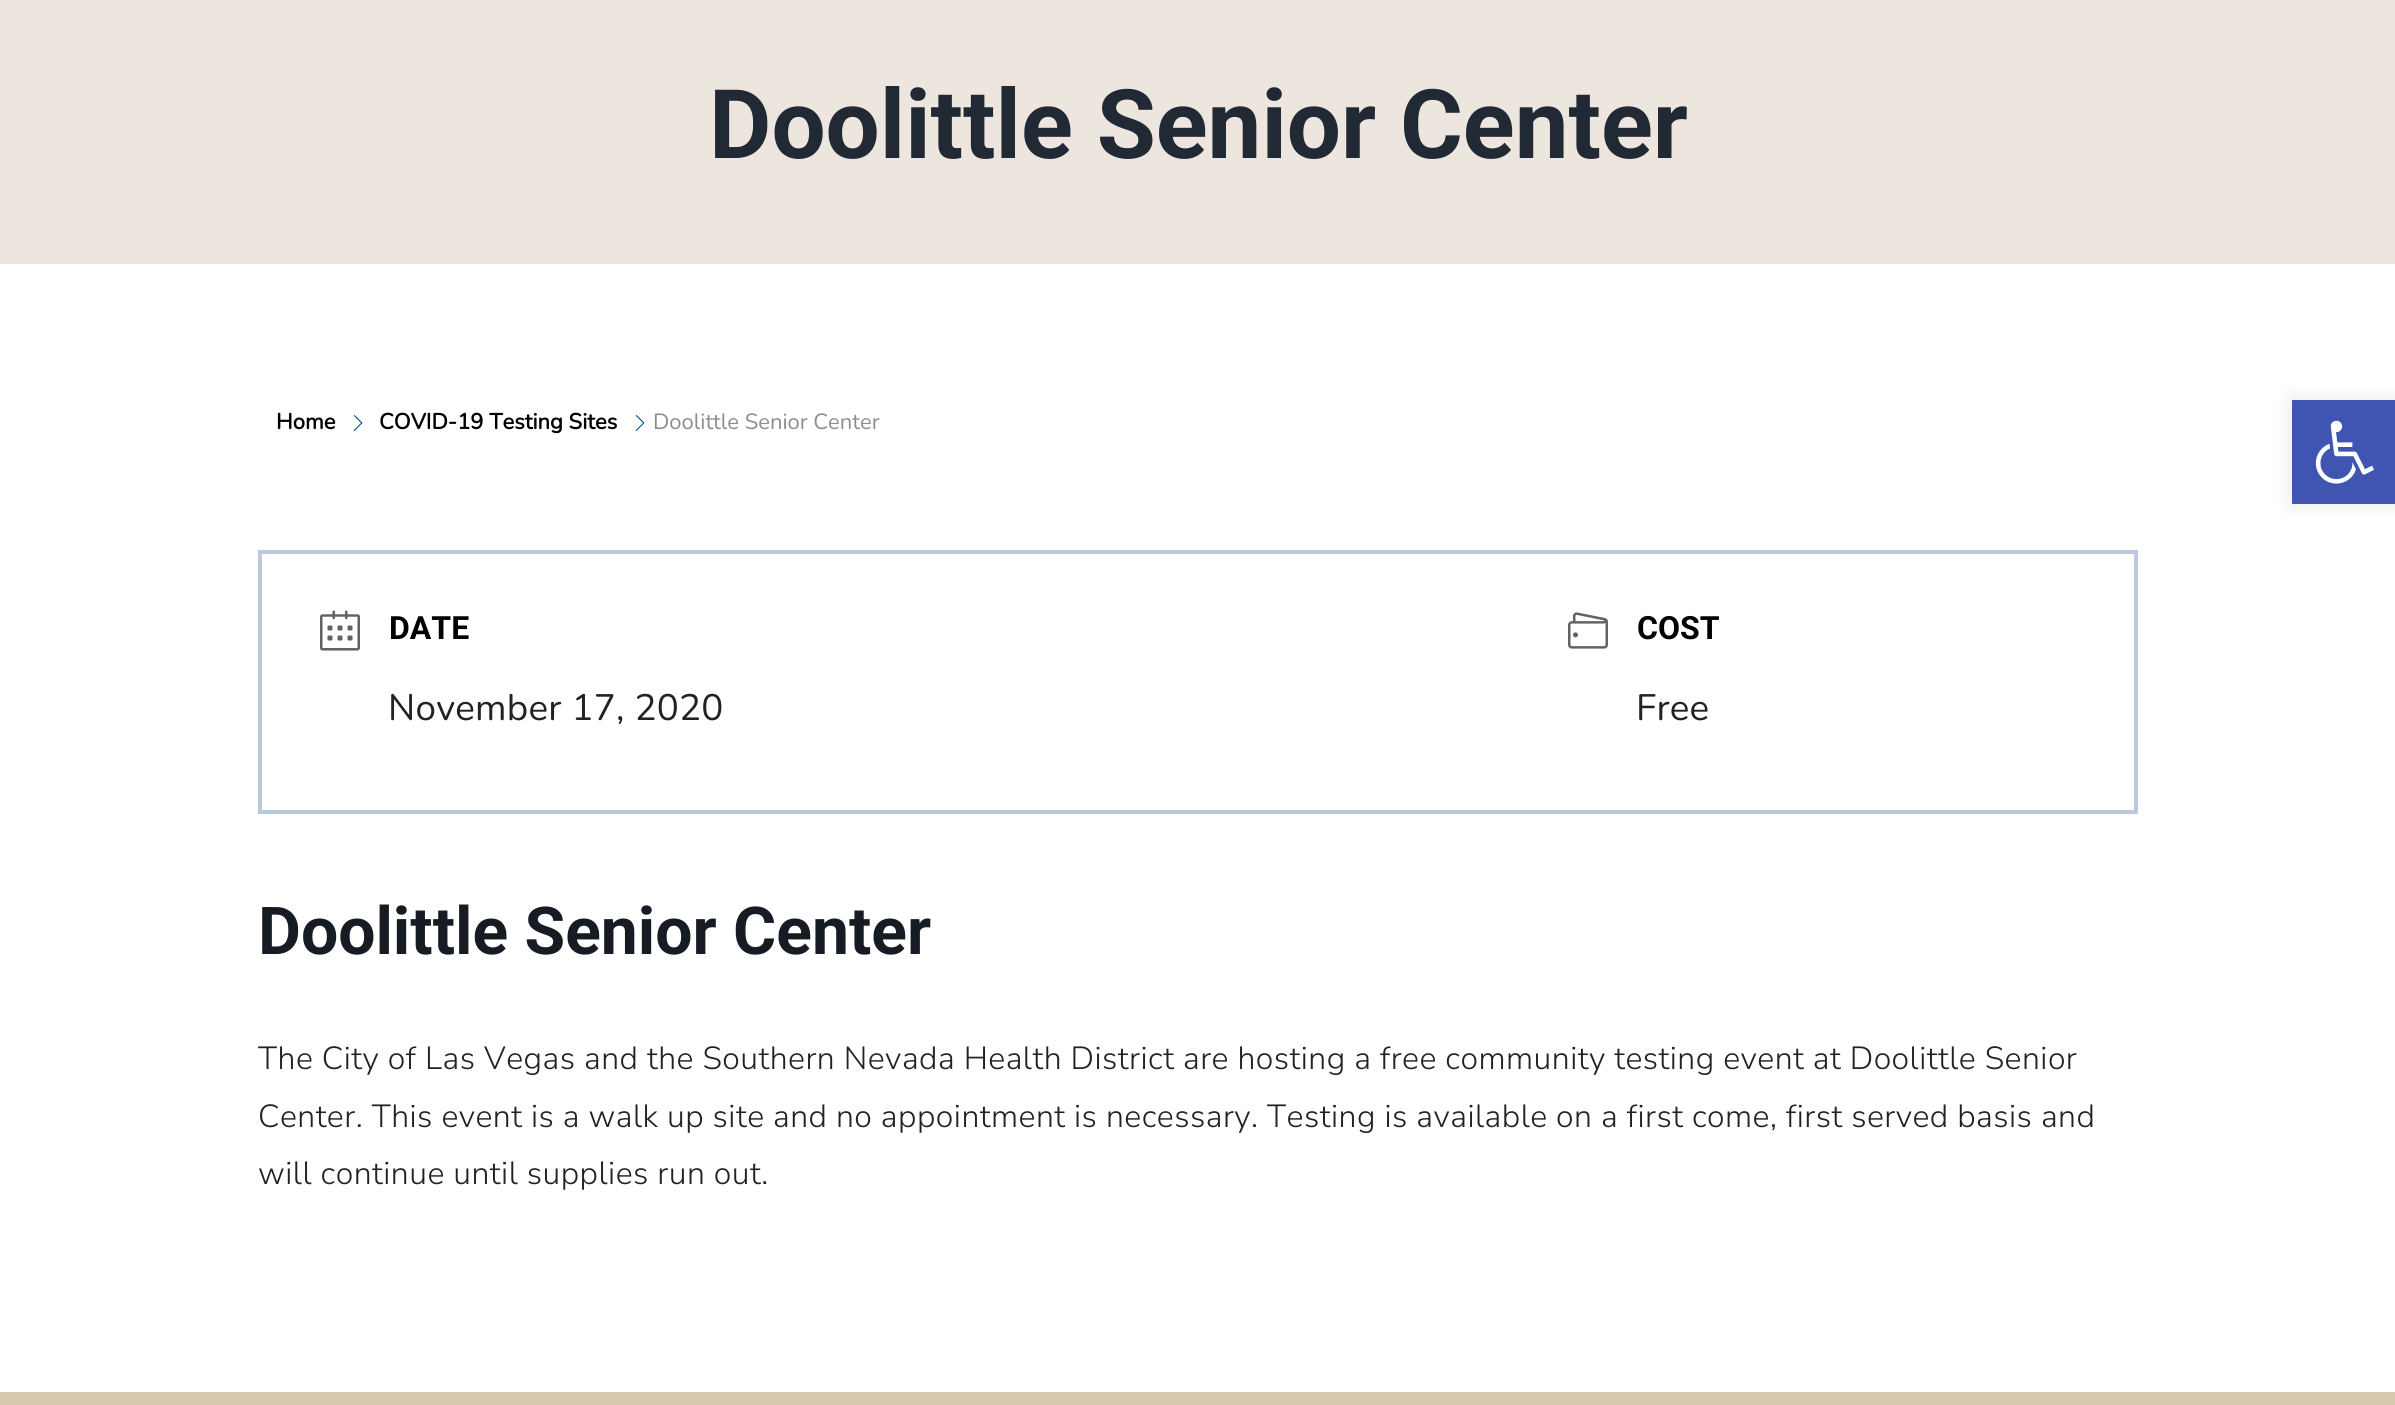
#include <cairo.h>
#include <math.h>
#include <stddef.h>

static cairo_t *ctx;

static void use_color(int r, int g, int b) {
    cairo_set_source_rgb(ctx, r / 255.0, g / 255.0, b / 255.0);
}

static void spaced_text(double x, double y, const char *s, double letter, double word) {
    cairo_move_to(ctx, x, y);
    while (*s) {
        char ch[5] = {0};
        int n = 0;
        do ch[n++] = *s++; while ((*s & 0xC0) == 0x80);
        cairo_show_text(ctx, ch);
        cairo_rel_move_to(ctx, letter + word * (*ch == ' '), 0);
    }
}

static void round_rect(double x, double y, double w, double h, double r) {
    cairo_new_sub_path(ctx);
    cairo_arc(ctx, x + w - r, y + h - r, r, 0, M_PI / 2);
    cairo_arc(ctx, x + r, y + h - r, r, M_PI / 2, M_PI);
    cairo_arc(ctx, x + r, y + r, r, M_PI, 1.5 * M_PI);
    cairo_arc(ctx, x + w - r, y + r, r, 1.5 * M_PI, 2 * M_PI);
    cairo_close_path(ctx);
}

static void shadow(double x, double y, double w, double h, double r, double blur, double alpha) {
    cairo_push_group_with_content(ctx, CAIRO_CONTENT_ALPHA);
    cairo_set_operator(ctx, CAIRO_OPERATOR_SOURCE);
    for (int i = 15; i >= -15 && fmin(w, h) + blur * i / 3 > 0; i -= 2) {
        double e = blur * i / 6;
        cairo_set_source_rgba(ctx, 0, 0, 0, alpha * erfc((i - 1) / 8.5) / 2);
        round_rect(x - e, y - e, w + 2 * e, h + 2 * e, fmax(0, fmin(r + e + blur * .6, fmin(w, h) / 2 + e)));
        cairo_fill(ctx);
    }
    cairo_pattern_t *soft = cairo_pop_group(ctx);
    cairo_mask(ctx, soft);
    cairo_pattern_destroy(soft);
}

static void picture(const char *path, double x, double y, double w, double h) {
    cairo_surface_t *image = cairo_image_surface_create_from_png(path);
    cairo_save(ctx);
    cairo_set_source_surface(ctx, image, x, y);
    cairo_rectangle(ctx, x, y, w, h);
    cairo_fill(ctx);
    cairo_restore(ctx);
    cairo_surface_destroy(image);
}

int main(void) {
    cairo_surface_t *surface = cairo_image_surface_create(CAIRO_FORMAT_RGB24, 2395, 1405);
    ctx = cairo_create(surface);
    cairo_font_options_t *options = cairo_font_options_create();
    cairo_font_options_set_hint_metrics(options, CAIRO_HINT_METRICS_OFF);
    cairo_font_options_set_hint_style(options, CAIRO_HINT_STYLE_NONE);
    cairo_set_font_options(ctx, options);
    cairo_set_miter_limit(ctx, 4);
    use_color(255, 255, 255);
    cairo_paint(ctx);
    use_color(236, 230, 222);
    cairo_rectangle(ctx, 0, 0, 2395, 264);
    cairo_fill(ctx);
    cairo_select_font_face(ctx, "Roboto", CAIRO_FONT_SLANT_NORMAL, CAIRO_FONT_WEIGHT_BOLD);
    cairo_set_font_size(ctx, 96);
    use_color(33, 41, 52);
    cairo_move_to(ctx, 709, 158);
    cairo_show_text(ctx, "Doolittle Senior Center");
    cairo_select_font_face(ctx, "Nunito", CAIRO_FONT_SLANT_NORMAL, CAIRO_FONT_WEIGHT_BOLD);
    cairo_set_font_size(ctx, 22);
    use_color(0, 0, 0);
    cairo_move_to(ctx, 276, 429);
    cairo_show_text(ctx, "Home");
    picture("img1.png", 353, 415, 10, 16);
    cairo_move_to(ctx, 379, 429);
    cairo_show_text(ctx, "COVID-19 Testing Sites");
    picture("img1.png", 635, 415, 10, 16);
    cairo_select_font_face(ctx, "Nunito ExtraLight", CAIRO_FONT_SLANT_NORMAL, CAIRO_FONT_WEIGHT_NORMAL);
    use_color(141, 141, 141);
    cairo_move_to(ctx, 653, 429);
    cairo_show_text(ctx, "Doolittle Senior Center");
    cairo_rectangle(ctx, 260, 552, 1876, 260);
    use_color(184, 202, 219);
    cairo_set_line_width(ctx, 4);
    cairo_stroke(ctx);
    picture("img2.png", 320, 610, 40, 41);
    cairo_select_font_face(ctx, "Roboto", CAIRO_FONT_SLANT_NORMAL, CAIRO_FONT_WEIGHT_BOLD);
    cairo_set_font_size(ctx, 32);
    use_color(0, 0, 0);
    cairo_move_to(ctx, 389, 639);
    cairo_show_text(ctx, "DATE");
    cairo_select_font_face(ctx, "Nunito ExtraLight", CAIRO_FONT_SLANT_NORMAL, CAIRO_FONT_WEIGHT_NORMAL);
    cairo_set_font_size(ctx, 36.75);
    use_color(34, 34, 34);
    spaced_text(388, 720, "November 17, 2020", 0.25, 0);
    picture("img3.png", 1568, 612, 40, 37);
    cairo_select_font_face(ctx, "Roboto", CAIRO_FONT_SLANT_NORMAL, CAIRO_FONT_WEIGHT_BOLD);
    cairo_set_font_size(ctx, 32);
    use_color(0, 0, 0);
    cairo_move_to(ctx, 1637, 639);
    cairo_show_text(ctx, "COST");
    cairo_select_font_face(ctx, "Nunito ExtraLight", CAIRO_FONT_SLANT_NORMAL, CAIRO_FONT_WEIGHT_NORMAL);
    cairo_set_font_size(ctx, 36.75);
    use_color(34, 34, 34);
    spaced_text(1636, 720, "Free", 0.25, 0);
    cairo_select_font_face(ctx, "Roboto", CAIRO_FONT_SLANT_NORMAL, CAIRO_FONT_WEIGHT_BOLD);
    cairo_set_font_size(ctx, 66);
    use_color(23, 28, 36);
    cairo_move_to(ctx, 258, 954);
    cairo_show_text(ctx, "Doolittle Senior Center");
    cairo_select_font_face(ctx, "Nunito Sans Light", CAIRO_FONT_SLANT_NORMAL, CAIRO_FONT_WEIGHT_NORMAL);
    cairo_set_font_size(ctx, 32);
    use_color(34, 34, 34);
    spaced_text(258, 1069, "The City of Las Vegas and the Southern Nevada Health District are hosting a free community testing event at Doolittle Senior", 0.48, 0);
    spaced_text(258, 1127, "Center. This event is a walk up site and no appointment is necessary. Testing is available on a first come, first served basis and", 0.48, 0);
    spaced_text(258, 1184, "will continue until supplies run out.", 0.48, 0);
    use_color(217, 201, 177);
    cairo_rectangle(ctx, 0, 1392, 2395, 13);
    cairo_fill(ctx);
    use_color(0, 0, 0);
    shadow(2292, 400, 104, 104, 0, 10, 0.1);
    use_color(64, 84, 178);
    cairo_rectangle(ctx, 2292, 400, 103, 104);
    cairo_fill(ctx);
    picture("img4.png", 2315, 420, 59, 64);
    cairo_surface_write_to_png(surface, "result.png");
    cairo_font_options_destroy(options);
    cairo_destroy(ctx);
    cairo_surface_destroy(surface);
    return 0;
}
